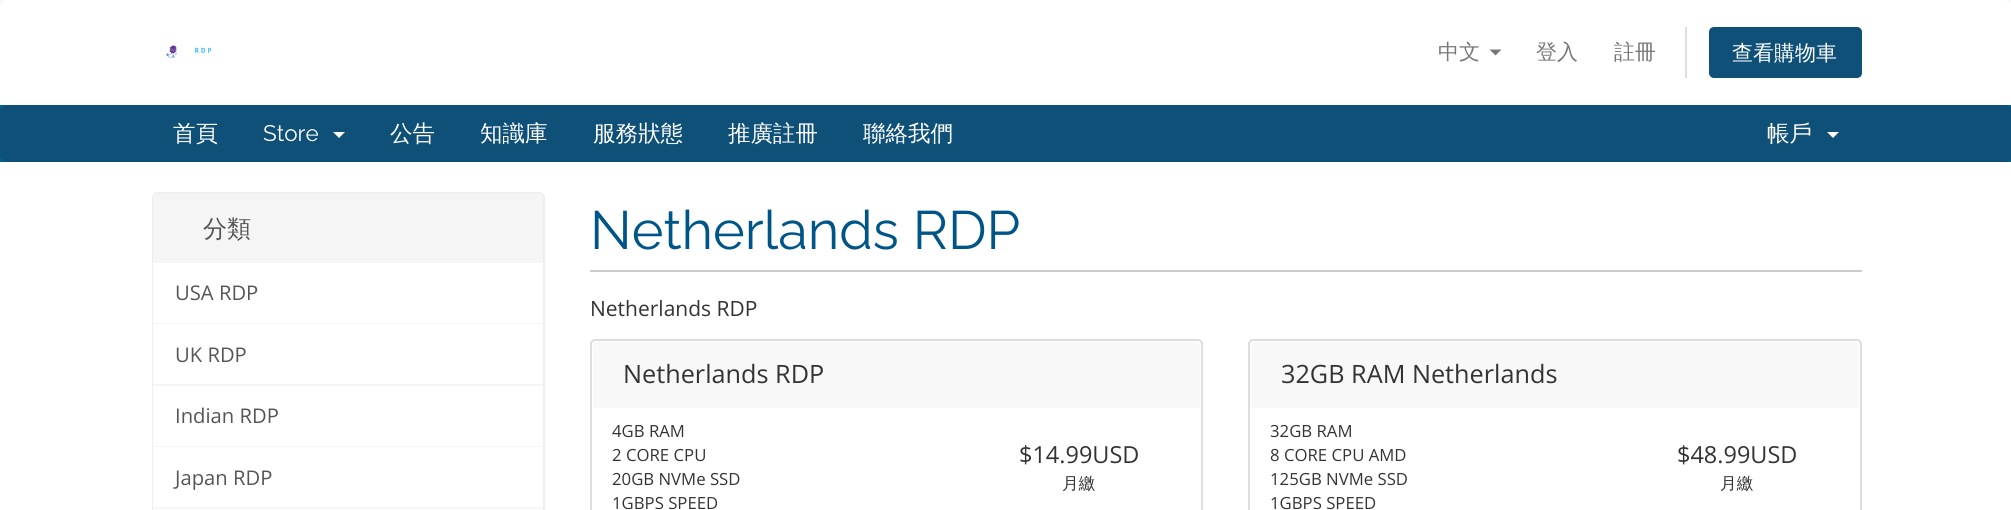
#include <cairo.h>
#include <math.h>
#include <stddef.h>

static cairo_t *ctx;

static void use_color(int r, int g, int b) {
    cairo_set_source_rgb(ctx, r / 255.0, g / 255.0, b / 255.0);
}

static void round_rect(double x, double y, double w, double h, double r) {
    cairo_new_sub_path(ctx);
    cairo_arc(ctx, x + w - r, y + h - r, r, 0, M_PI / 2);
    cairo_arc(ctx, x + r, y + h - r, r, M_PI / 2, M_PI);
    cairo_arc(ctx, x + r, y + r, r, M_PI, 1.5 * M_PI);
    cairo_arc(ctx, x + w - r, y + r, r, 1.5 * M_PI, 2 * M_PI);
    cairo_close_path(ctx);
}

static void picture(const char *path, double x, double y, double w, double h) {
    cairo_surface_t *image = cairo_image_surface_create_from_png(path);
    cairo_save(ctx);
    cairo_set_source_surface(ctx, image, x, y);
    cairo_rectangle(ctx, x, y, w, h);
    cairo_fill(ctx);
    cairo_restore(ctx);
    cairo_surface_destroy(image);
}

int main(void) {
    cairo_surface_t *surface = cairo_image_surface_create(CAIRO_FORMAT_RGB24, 2011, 510);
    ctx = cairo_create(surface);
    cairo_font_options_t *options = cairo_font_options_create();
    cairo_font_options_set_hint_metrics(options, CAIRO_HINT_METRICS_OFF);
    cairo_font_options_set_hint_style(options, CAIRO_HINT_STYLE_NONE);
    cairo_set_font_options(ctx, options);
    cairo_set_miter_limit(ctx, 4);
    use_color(248, 248, 248);
    cairo_paint(ctx);
    use_color(255, 255, 255);
    cairo_new_path(ctx);
    cairo_move_to(ctx, 8, 0);
    cairo_line_to(ctx, 2004, 0);
    cairo_curve_to(ctx, 2008.5, 0, 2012, 3.5, 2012, 8);
    cairo_line_to(ctx, 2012, 105);
    cairo_line_to(ctx, 0, 105);
    cairo_line_to(ctx, 0, 8);
    cairo_curve_to(ctx, 0, 3.5, 3.5, 0, 8, 0);
    cairo_close_path(ctx);
    cairo_fill(ctx);
    picture("img1.png", 166, 45, 46, 13);
    cairo_select_font_face(ctx, "WenQuanYi Zen Hei Medium", CAIRO_FONT_SLANT_NORMAL, CAIRO_FONT_WEIGHT_NORMAL);
    cairo_set_font_size(ctx, 21);
    use_color(119, 119, 119);
    cairo_move_to(ctx, 1438, 59);
    cairo_show_text(ctx, "中文");
    cairo_new_path(ctx);
    cairo_move_to(ctx, 1489.5, 49.5);
    cairo_line_to(ctx, 1501.5, 49.5);
    cairo_line_to(ctx, 1495.5, 55.5);
    cairo_close_path(ctx);
    cairo_fill(ctx);
    cairo_move_to(ctx, 1536, 59);
    cairo_show_text(ctx, "登入");
    cairo_move_to(ctx, 1614, 59);
    cairo_show_text(ctx, "註冊");
    use_color(221, 221, 221);
    cairo_rectangle(ctx, 1685, 27, 2, 51);
    cairo_fill(ctx);
    use_color(14, 80, 119);
    round_rect(1709, 27, 153, 51, 5);
    cairo_fill(ctx);
    use_color(255, 255, 255);
    cairo_move_to(ctx, 1732, 60);
    cairo_show_text(ctx, "查看購物車");
    use_color(0, 102, 135);
    cairo_rectangle(ctx, 0, 105, 2011, 57);
    cairo_fill(ctx);
    use_color(14, 80, 119);
    round_rect(0, 105, 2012, 57, 6);
    cairo_fill(ctx);
    cairo_set_font_size(ctx, 22.5);
    use_color(255, 255, 255);
    cairo_move_to(ctx, 173, 141);
    cairo_show_text(ctx, "首頁");
    cairo_select_font_face(ctx, "Raleway", CAIRO_FONT_SLANT_NORMAL, CAIRO_FONT_WEIGHT_NORMAL);
    cairo_move_to(ctx, 263, 141);
    cairo_show_text(ctx, "Store");
    cairo_new_path(ctx);
    cairo_move_to(ctx, 333, 132);
    cairo_line_to(ctx, 345, 132);
    cairo_line_to(ctx, 339, 138);
    cairo_close_path(ctx);
    cairo_fill(ctx);
    cairo_select_font_face(ctx, "WenQuanYi Zen Hei Medium", CAIRO_FONT_SLANT_NORMAL, CAIRO_FONT_WEIGHT_NORMAL);
    cairo_move_to(ctx, 390, 141);
    cairo_show_text(ctx, "公告");
    cairo_move_to(ctx, 480, 141);
    cairo_show_text(ctx, "知識庫");
    cairo_move_to(ctx, 593, 141);
    cairo_show_text(ctx, "服務狀態");
    cairo_move_to(ctx, 728, 141);
    cairo_show_text(ctx, "推廣註冊");
    cairo_move_to(ctx, 863, 141);
    cairo_show_text(ctx, "聯絡我們");
    cairo_move_to(ctx, 1767, 141);
    cairo_show_text(ctx, "帳戶");
    cairo_new_path(ctx);
    cairo_move_to(ctx, 1827, 132);
    cairo_line_to(ctx, 1839, 132);
    cairo_line_to(ctx, 1833, 138);
    cairo_close_path(ctx);
    cairo_fill(ctx);
    cairo_rectangle(ctx, 0, 162, 2011, 348);
    cairo_fill(ctx);
    round_rect(153, 193, 391, 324, 5);
    use_color(238, 238, 238);
    cairo_stroke(ctx);
    use_color(245, 245, 245);
    cairo_new_path(ctx);
    cairo_move_to(ctx, 158, 194);
    cairo_line_to(ctx, 538, 194);
    cairo_curve_to(ctx, 541, 194, 543, 196, 543, 199);
    cairo_line_to(ctx, 543, 263);
    cairo_line_to(ctx, 153, 263);
    cairo_line_to(ctx, 153, 199);
    cairo_curve_to(ctx, 153, 196, 155, 194, 158, 194);
    cairo_close_path(ctx);
    cairo_fill(ctx);
    cairo_set_font_size(ctx, 24);
    use_color(85, 85, 85);
    cairo_move_to(ctx, 203, 237);
    cairo_show_text(ctx, "分類");
    use_color(255, 255, 255);
    cairo_rectangle(ctx, 153, 263, 1, 60);
    cairo_fill(ctx);
    use_color(245, 245, 245);
    cairo_rectangle(ctx, 153, 323, 390, 1);
    cairo_fill(ctx);
    cairo_select_font_face(ctx, "Open Sans", CAIRO_FONT_SLANT_NORMAL, CAIRO_FONT_WEIGHT_NORMAL);
    cairo_set_font_size(ctx, 20.25);
    use_color(85, 85, 85);
    cairo_move_to(ctx, 175, 300);
    cairo_show_text(ctx, "USA RDP");
    use_color(255, 255, 255);
    cairo_rectangle(ctx, 153, 324, 1, 60);
    cairo_fill(ctx);
    use_color(245, 245, 245);
    cairo_rectangle(ctx, 153, 384, 390, 2);
    cairo_fill(ctx);
    use_color(85, 85, 85);
    cairo_move_to(ctx, 175, 362);
    cairo_show_text(ctx, "UK RDP");
    use_color(255, 255, 255);
    cairo_rectangle(ctx, 153, 386, 1, 60);
    cairo_fill(ctx);
    use_color(245, 245, 245);
    cairo_rectangle(ctx, 153, 446, 390, 1);
    cairo_fill(ctx);
    use_color(85, 85, 85);
    cairo_move_to(ctx, 175, 423);
    cairo_show_text(ctx, "Indian RDP");
    use_color(255, 255, 255);
    cairo_rectangle(ctx, 153, 447, 1, 60);
    cairo_fill(ctx);
    use_color(245, 245, 245);
    cairo_rectangle(ctx, 153, 507, 390, 2);
    cairo_fill(ctx);
    use_color(85, 85, 85);
    cairo_move_to(ctx, 175, 485);
    cairo_show_text(ctx, "Japan RDP");
    use_color(255, 255, 255);
    cairo_rectangle(ctx, 153, 509, 1, 1);
    cairo_fill(ctx);
    use_color(204, 204, 204);
    cairo_rectangle(ctx, 590, 270, 1272, 2);
    cairo_fill(ctx);
    cairo_select_font_face(ctx, "Raleway", CAIRO_FONT_SLANT_NORMAL, CAIRO_FONT_WEIGHT_NORMAL);
    cairo_set_font_size(ctx, 54);
    use_color(0, 85, 136);
    cairo_move_to(ctx, 590, 249);
    cairo_show_text(ctx, "Netherlands RDP");
    cairo_select_font_face(ctx, "Open Sans", CAIRO_FONT_SLANT_NORMAL, CAIRO_FONT_WEIGHT_NORMAL);
    cairo_set_font_size(ctx, 21);
    use_color(51, 51, 51);
    cairo_move_to(ctx, 590, 316);
    cairo_show_text(ctx, "Netherlands RDP");
    round_rect(591, 340, 611, 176, 4);
    use_color(221, 221, 221);
    cairo_stroke(ctx);
    use_color(248, 248, 248);
    cairo_new_path(ctx);
    cairo_move_to(ctx, 598, 342);
    cairo_line_to(ctx, 1195, 342);
    cairo_curve_to(ctx, 1198, 342, 1200, 344, 1200, 347);
    cairo_line_to(ctx, 1200, 408);
    cairo_line_to(ctx, 593, 408);
    cairo_line_to(ctx, 593, 347);
    cairo_curve_to(ctx, 593, 344, 595, 342, 598, 342);
    cairo_close_path(ctx);
    cairo_fill(ctx);
    cairo_set_font_size(ctx, 25.25);
    use_color(51, 51, 51);
    cairo_move_to(ctx, 623, 383);
    cairo_show_text(ctx, "Netherlands RDP");
    cairo_set_font_size(ctx, 16.75);
    cairo_move_to(ctx, 612, 437);
    cairo_show_text(ctx, "4GB RAM");
    cairo_move_to(ctx, 612, 461);
    cairo_show_text(ctx, "2 CORE CPU");
    cairo_move_to(ctx, 612, 485);
    cairo_show_text(ctx, "20GB NVMe SSD");
    cairo_move_to(ctx, 612, 509);
    cairo_show_text(ctx, "1GBPS SPEED");
    cairo_set_font_size(ctx, 23.5);
    cairo_move_to(ctx, 1019, 463);
    cairo_show_text(ctx, "$14.99USD");
    cairo_select_font_face(ctx, "WenQuanYi Zen Hei Medium", CAIRO_FONT_SLANT_NORMAL, CAIRO_FONT_WEIGHT_NORMAL);
    cairo_set_font_size(ctx, 16.75);
    cairo_move_to(ctx, 1062, 489);
    cairo_show_text(ctx, "月繳");
    round_rect(1249, 340, 612, 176, 4);
    use_color(221, 221, 221);
    cairo_stroke(ctx);
    use_color(248, 248, 248);
    cairo_new_path(ctx);
    cairo_move_to(ctx, 1256, 342);
    cairo_line_to(ctx, 1854, 342);
    cairo_curve_to(ctx, 1857, 342, 1859, 344, 1859, 347);
    cairo_line_to(ctx, 1859, 408);
    cairo_line_to(ctx, 1251, 408);
    cairo_line_to(ctx, 1251, 347);
    cairo_curve_to(ctx, 1251, 344, 1253, 342, 1256, 342);
    cairo_close_path(ctx);
    cairo_fill(ctx);
    cairo_select_font_face(ctx, "Open Sans", CAIRO_FONT_SLANT_NORMAL, CAIRO_FONT_WEIGHT_NORMAL);
    cairo_set_font_size(ctx, 25.25);
    use_color(51, 51, 51);
    cairo_move_to(ctx, 1281, 383);
    cairo_show_text(ctx, "32GB RAM Netherlands");
    cairo_set_font_size(ctx, 16.75);
    cairo_move_to(ctx, 1270, 437);
    cairo_show_text(ctx, "32GB RAM");
    cairo_move_to(ctx, 1270, 461);
    cairo_show_text(ctx, "8 CORE CPU AMD");
    cairo_move_to(ctx, 1270, 485);
    cairo_show_text(ctx, "125GB NVMe SSD");
    cairo_move_to(ctx, 1270, 509);
    cairo_show_text(ctx, "1GBPS SPEED");
    cairo_set_font_size(ctx, 23.5);
    cairo_move_to(ctx, 1677, 463);
    cairo_show_text(ctx, "$48.99USD");
    cairo_select_font_face(ctx, "WenQuanYi Zen Hei Medium", CAIRO_FONT_SLANT_NORMAL, CAIRO_FONT_WEIGHT_NORMAL);
    cairo_set_font_size(ctx, 16.75);
    cairo_move_to(ctx, 1720, 489);
    cairo_show_text(ctx, "月繳");
    cairo_surface_write_to_png(surface, "result.png");
    cairo_font_options_destroy(options);
    cairo_destroy(ctx);
    cairo_surface_destroy(surface);
    return 0;
}
